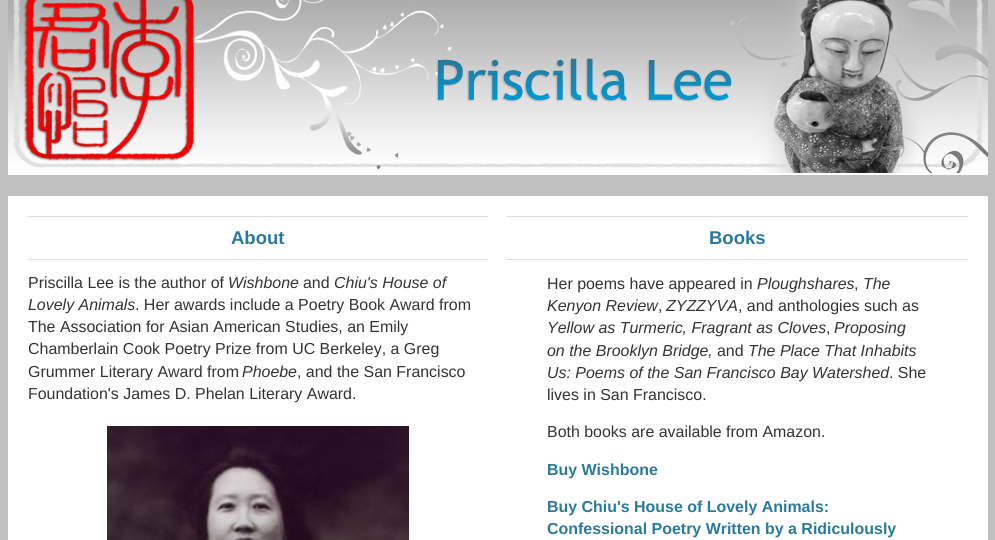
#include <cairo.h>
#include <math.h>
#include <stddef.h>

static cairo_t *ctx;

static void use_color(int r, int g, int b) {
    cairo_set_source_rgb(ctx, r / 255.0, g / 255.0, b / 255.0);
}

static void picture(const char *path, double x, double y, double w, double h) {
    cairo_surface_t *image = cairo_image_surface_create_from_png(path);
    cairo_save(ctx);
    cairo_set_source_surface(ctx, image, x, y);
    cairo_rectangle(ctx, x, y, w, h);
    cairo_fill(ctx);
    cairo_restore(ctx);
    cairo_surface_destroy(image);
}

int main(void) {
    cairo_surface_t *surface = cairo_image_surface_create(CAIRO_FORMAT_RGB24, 995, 540);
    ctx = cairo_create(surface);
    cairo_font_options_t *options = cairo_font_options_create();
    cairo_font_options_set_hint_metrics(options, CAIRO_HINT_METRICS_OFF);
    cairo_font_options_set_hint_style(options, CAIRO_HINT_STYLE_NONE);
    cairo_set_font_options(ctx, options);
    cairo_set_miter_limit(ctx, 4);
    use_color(192, 192, 192);
    cairo_paint(ctx);
    picture("img1.png", 8, 0, 980, 173);
    use_color(255, 255, 255);
    cairo_rectangle(ctx, 8, 173, 980, 2);
    cairo_fill(ctx);
    cairo_rectangle(ctx, 8, 196, 980, 344);
    cairo_fill(ctx);
    use_color(221, 221, 221);
    cairo_rectangle(ctx, 28, 216, 460, 1);
    cairo_fill(ctx);
    cairo_rectangle(ctx, 28, 259, 460, 1);
    cairo_fill(ctx);
    cairo_select_font_face(ctx, "Liberation Sans", CAIRO_FONT_SLANT_NORMAL, CAIRO_FONT_WEIGHT_BOLD);
    cairo_set_font_size(ctx, 18.5);
    use_color(42, 122, 154);
    cairo_move_to(ctx, 231, 244);
    cairo_show_text(ctx, "About");
    cairo_select_font_face(ctx, "Liberation Sans", CAIRO_FONT_SLANT_NORMAL, CAIRO_FONT_WEIGHT_NORMAL);
    cairo_set_font_size(ctx, 15.95);
    use_color(51, 51, 51);
    cairo_move_to(ctx, 28, 288);
    cairo_show_text(ctx, "Priscilla Lee is the author of");
    cairo_select_font_face(ctx, "Liberation Sans", CAIRO_FONT_SLANT_ITALIC, CAIRO_FONT_WEIGHT_NORMAL);
    cairo_move_to(ctx, 228, 288);
    cairo_show_text(ctx, "Wishbone");
    cairo_select_font_face(ctx, "Liberation Sans", CAIRO_FONT_SLANT_NORMAL, CAIRO_FONT_WEIGHT_NORMAL);
    cairo_move_to(ctx, 303, 288);
    cairo_show_text(ctx, "and");
    cairo_select_font_face(ctx, "Liberation Sans", CAIRO_FONT_SLANT_ITALIC, CAIRO_FONT_WEIGHT_NORMAL);
    cairo_move_to(ctx, 334, 288);
    cairo_show_text(ctx, "Chiu's House of");
    cairo_move_to(ctx, 28, 310);
    cairo_show_text(ctx, "Lovely Animals");
    cairo_select_font_face(ctx, "Liberation Sans", CAIRO_FONT_SLANT_NORMAL, CAIRO_FONT_WEIGHT_NORMAL);
    cairo_move_to(ctx, 135, 310);
    cairo_show_text(ctx, ". Her awards include a Poetry Book Award from");
    cairo_move_to(ctx, 28, 332);
    cairo_show_text(ctx, "The Association for Asian American Studies, an Emily");
    cairo_move_to(ctx, 28, 354);
    cairo_show_text(ctx, "Chamberlain Cook Poetry Prize from UC Berkeley, a Greg");
    cairo_move_to(ctx, 28, 377);
    cairo_show_text(ctx, "Grummer Literary Award from");
    cairo_select_font_face(ctx, "Liberation Sans", CAIRO_FONT_SLANT_ITALIC, CAIRO_FONT_WEIGHT_NORMAL);
    cairo_move_to(ctx, 242, 377);
    cairo_show_text(ctx, "Phoebe");
    cairo_select_font_face(ctx, "Liberation Sans", CAIRO_FONT_SLANT_NORMAL, CAIRO_FONT_WEIGHT_NORMAL);
    cairo_move_to(ctx, 297, 377);
    cairo_show_text(ctx, ", and the San Francisco");
    cairo_move_to(ctx, 28, 399);
    cairo_show_text(ctx, "Foundation's James D. Phelan Literary Award.");
    picture("img2.png", 107, 426, 302, 114);
    use_color(221, 221, 221);
    cairo_rectangle(ctx, 507, 216, 461, 1);
    cairo_fill(ctx);
    cairo_rectangle(ctx, 507, 259, 461, 1);
    cairo_fill(ctx);
    cairo_select_font_face(ctx, "Liberation Sans", CAIRO_FONT_SLANT_NORMAL, CAIRO_FONT_WEIGHT_BOLD);
    cairo_set_font_size(ctx, 18.5);
    use_color(42, 122, 154);
    cairo_move_to(ctx, 709, 244);
    cairo_show_text(ctx, "Books");
    cairo_select_font_face(ctx, "Liberation Sans", CAIRO_FONT_SLANT_NORMAL, CAIRO_FONT_WEIGHT_NORMAL);
    cairo_set_font_size(ctx, 15.95);
    use_color(51, 51, 51);
    cairo_move_to(ctx, 547, 289);
    cairo_show_text(ctx, "Her poems have appeared in");
    cairo_select_font_face(ctx, "Liberation Sans", CAIRO_FONT_SLANT_ITALIC, CAIRO_FONT_WEIGHT_NORMAL);
    cairo_move_to(ctx, 757, 289);
    cairo_show_text(ctx, "Ploughshares");
    cairo_select_font_face(ctx, "Liberation Sans", CAIRO_FONT_SLANT_NORMAL, CAIRO_FONT_WEIGHT_NORMAL);
    cairo_move_to(ctx, 854, 289);
    cairo_show_text(ctx, ",");
    cairo_select_font_face(ctx, "Liberation Sans", CAIRO_FONT_SLANT_ITALIC, CAIRO_FONT_WEIGHT_NORMAL);
    cairo_move_to(ctx, 863, 289);
    cairo_show_text(ctx, "The");
    cairo_move_to(ctx, 547, 311);
    cairo_show_text(ctx, "Kenyon Review");
    cairo_move_to(ctx, 666, 311);
    cairo_show_text(ctx, "ZYZZYVA");
    cairo_select_font_face(ctx, "Liberation Sans", CAIRO_FONT_SLANT_NORMAL, CAIRO_FONT_WEIGHT_NORMAL);
    cairo_move_to(ctx, 738, 311);
    cairo_show_text(ctx, ", and anthologies such as");
    cairo_move_to(ctx, 658, 311);
    cairo_show_text(ctx, ",");
    cairo_select_font_face(ctx, "Liberation Sans", CAIRO_FONT_SLANT_ITALIC, CAIRO_FONT_WEIGHT_NORMAL);
    cairo_move_to(ctx, 547, 333);
    cairo_show_text(ctx, "Yellow as Turmeric, Fragrant as Cloves");
    cairo_select_font_face(ctx, "Liberation Sans", CAIRO_FONT_SLANT_NORMAL, CAIRO_FONT_WEIGHT_NORMAL);
    cairo_move_to(ctx, 826, 333);
    cairo_show_text(ctx, ",");
    cairo_select_font_face(ctx, "Liberation Sans", CAIRO_FONT_SLANT_ITALIC, CAIRO_FONT_WEIGHT_NORMAL);
    cairo_move_to(ctx, 834, 333);
    cairo_show_text(ctx, "Proposing");
    cairo_move_to(ctx, 547, 356);
    cairo_show_text(ctx, "on the Brooklyn Bridge,");
    cairo_select_font_face(ctx, "Liberation Sans", CAIRO_FONT_SLANT_NORMAL, CAIRO_FONT_WEIGHT_NORMAL);
    cairo_move_to(ctx, 717, 356);
    cairo_show_text(ctx, "and");
    cairo_select_font_face(ctx, "Liberation Sans", CAIRO_FONT_SLANT_ITALIC, CAIRO_FONT_WEIGHT_NORMAL);
    cairo_move_to(ctx, 748, 356);
    cairo_show_text(ctx, "The Place That Inhabits");
    cairo_move_to(ctx, 547, 378);
    cairo_show_text(ctx, "Us: Poems of the San Francisco Bay Watershed");
    cairo_select_font_face(ctx, "Liberation Sans", CAIRO_FONT_SLANT_NORMAL, CAIRO_FONT_WEIGHT_NORMAL);
    cairo_move_to(ctx, 889, 378);
    cairo_show_text(ctx, ". She");
    cairo_move_to(ctx, 547, 400);
    cairo_show_text(ctx, "lives in San Francisco.");
    cairo_move_to(ctx, 547, 437);
    cairo_show_text(ctx, "Both books are available from Amazon.");
    cairo_select_font_face(ctx, "Liberation Sans", CAIRO_FONT_SLANT_NORMAL, CAIRO_FONT_WEIGHT_BOLD);
    use_color(42, 122, 154);
    cairo_move_to(ctx, 547, 475);
    cairo_show_text(ctx, "Buy Wishbone");
    cairo_move_to(ctx, 547, 512);
    cairo_show_text(ctx, "Buy Chiu's House of Lovely Animals:");
    cairo_move_to(ctx, 547, 534);
    cairo_show_text(ctx, "Confessional Poetry Written by a Ridiculously");
    cairo_surface_write_to_png(surface, "result.png");
    cairo_font_options_destroy(options);
    cairo_destroy(ctx);
    cairo_surface_destroy(surface);
    return 0;
}
